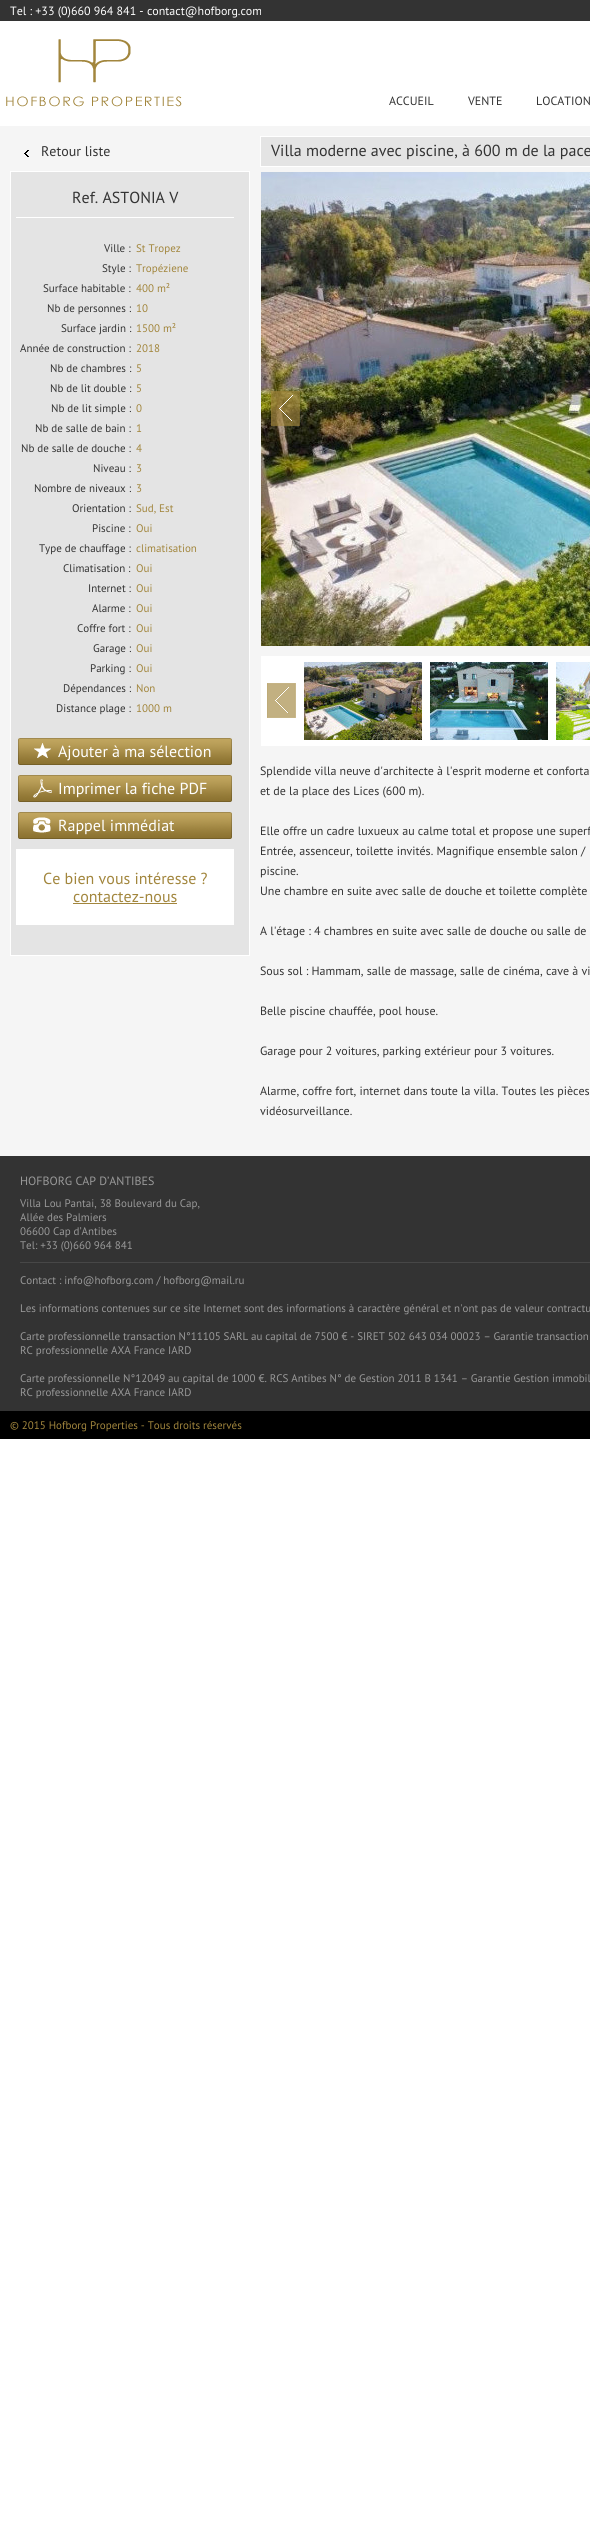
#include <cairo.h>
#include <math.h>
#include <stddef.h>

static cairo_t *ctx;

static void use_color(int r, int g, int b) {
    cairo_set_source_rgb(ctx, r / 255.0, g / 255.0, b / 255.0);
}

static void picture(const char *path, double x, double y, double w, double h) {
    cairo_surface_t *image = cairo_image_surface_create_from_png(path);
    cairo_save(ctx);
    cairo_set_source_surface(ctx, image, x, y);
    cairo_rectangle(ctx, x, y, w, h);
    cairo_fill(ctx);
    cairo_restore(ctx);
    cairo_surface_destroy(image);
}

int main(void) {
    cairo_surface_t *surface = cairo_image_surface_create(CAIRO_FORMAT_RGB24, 590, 2544);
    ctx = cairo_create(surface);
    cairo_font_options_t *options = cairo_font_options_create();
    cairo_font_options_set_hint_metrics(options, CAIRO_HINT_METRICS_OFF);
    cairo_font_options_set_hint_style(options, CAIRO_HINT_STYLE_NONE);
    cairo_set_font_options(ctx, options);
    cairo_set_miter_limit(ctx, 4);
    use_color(255, 255, 255);
    cairo_paint(ctx);
    use_color(51, 51, 51);
    cairo_rectangle(ctx, 0, 0, 590, 21);
    cairo_fill(ctx);
    cairo_select_font_face(ctx, "PT Sans", CAIRO_FONT_SLANT_NORMAL, CAIRO_FONT_WEIGHT_NORMAL);
    cairo_set_font_size(ctx, 12);
    use_color(255, 255, 255);
    cairo_move_to(ctx, 10, 15);
    cairo_show_text(ctx, "Tel : +33 (0)660 964 841 - contact@hofborg.com");
    picture("img1.png", 6, 39, 176, 68);
    use_color(51, 51, 51);
    cairo_move_to(ctx, 389, 105);
    cairo_show_text(ctx, "ACCUEIL");
    cairo_move_to(ctx, 468, 105);
    cairo_show_text(ctx, "VENTE");
    cairo_move_to(ctx, 536, 105);
    cairo_show_text(ctx, "LOCATION");
    use_color(245, 245, 245);
    cairo_rectangle(ctx, 0, 126, 590, 1030);
    cairo_fill(ctx);
    picture("img2.png", 24, 150, 5, 7);
    cairo_set_font_size(ctx, 14);
    use_color(51, 51, 51);
    cairo_move_to(ctx, 41, 156);
    cairo_show_text(ctx, "Retour liste");
    use_color(228, 228, 228);
    cairo_rectangle(ctx, 10.5, 171.5, 239, 784);
    cairo_fill_preserve(ctx);
    use_color(255, 255, 255);
    cairo_set_line_width(ctx, 1);
    cairo_stroke(ctx);
    cairo_rectangle(ctx, 16, 217, 218, 1);
    cairo_fill(ctx);
    cairo_set_font_size(ctx, 16);
    use_color(51, 51, 51);
    cairo_move_to(ctx, 72, 203);
    cairo_show_text(ctx, "Ref. ASTONIA V");
    cairo_set_font_size(ctx, 11);
    cairo_move_to(ctx, 104, 252);
    cairo_show_text(ctx, "Ville :");
    use_color(162, 134, 61);
    cairo_move_to(ctx, 136, 252);
    cairo_show_text(ctx, "St Tropez");
    use_color(51, 51, 51);
    cairo_move_to(ctx, 102, 272);
    cairo_show_text(ctx, "Style :");
    use_color(162, 134, 61);
    cairo_move_to(ctx, 136, 272);
    cairo_show_text(ctx, "Tropéziene");
    use_color(51, 51, 51);
    cairo_move_to(ctx, 43, 292);
    cairo_show_text(ctx, "Surface habitable :");
    use_color(162, 134, 61);
    cairo_move_to(ctx, 136, 292);
    cairo_show_text(ctx, "400 m²");
    use_color(51, 51, 51);
    cairo_move_to(ctx, 47, 312);
    cairo_show_text(ctx, "Nb de personnes :");
    use_color(162, 134, 61);
    cairo_move_to(ctx, 136, 312);
    cairo_show_text(ctx, "10");
    use_color(51, 51, 51);
    cairo_move_to(ctx, 61, 332);
    cairo_show_text(ctx, "Surface jardin :");
    use_color(162, 134, 61);
    cairo_move_to(ctx, 136, 332);
    cairo_show_text(ctx, "1500 m²");
    use_color(51, 51, 51);
    cairo_move_to(ctx, 20, 352);
    cairo_show_text(ctx, "Année de construction :");
    use_color(162, 134, 61);
    cairo_move_to(ctx, 136, 352);
    cairo_show_text(ctx, "2018");
    use_color(51, 51, 51);
    cairo_move_to(ctx, 50, 372);
    cairo_show_text(ctx, "Nb de chambres :");
    use_color(162, 134, 61);
    cairo_move_to(ctx, 136, 372);
    cairo_show_text(ctx, "5");
    use_color(51, 51, 51);
    cairo_move_to(ctx, 50, 392);
    cairo_show_text(ctx, "Nb de lit double :");
    use_color(162, 134, 61);
    cairo_move_to(ctx, 136, 392);
    cairo_show_text(ctx, "5");
    use_color(51, 51, 51);
    cairo_move_to(ctx, 51, 412);
    cairo_show_text(ctx, "Nb de lit simple :");
    use_color(162, 134, 61);
    cairo_move_to(ctx, 136, 412);
    cairo_show_text(ctx, "0");
    use_color(51, 51, 51);
    cairo_move_to(ctx, 35, 432);
    cairo_show_text(ctx, "Nb de salle de bain :");
    use_color(162, 134, 61);
    cairo_move_to(ctx, 136, 432);
    cairo_show_text(ctx, "1");
    use_color(51, 51, 51);
    cairo_move_to(ctx, 21, 452);
    cairo_show_text(ctx, "Nb de salle de douche :");
    use_color(162, 134, 61);
    cairo_move_to(ctx, 136, 452);
    cairo_show_text(ctx, "4");
    use_color(51, 51, 51);
    cairo_move_to(ctx, 93, 472);
    cairo_show_text(ctx, "Niveau :");
    use_color(162, 134, 61);
    cairo_move_to(ctx, 136, 472);
    cairo_show_text(ctx, "3");
    use_color(51, 51, 51);
    cairo_move_to(ctx, 34, 492);
    cairo_show_text(ctx, "Nombre de niveaux :");
    use_color(162, 134, 61);
    cairo_move_to(ctx, 136, 492);
    cairo_show_text(ctx, "3");
    use_color(51, 51, 51);
    cairo_move_to(ctx, 72, 512);
    cairo_show_text(ctx, "Orientation :");
    use_color(162, 134, 61);
    cairo_move_to(ctx, 136, 512);
    cairo_show_text(ctx, "Sud, Est");
    use_color(51, 51, 51);
    cairo_move_to(ctx, 92, 532);
    cairo_show_text(ctx, "Piscine :");
    use_color(162, 134, 61);
    cairo_move_to(ctx, 136, 532);
    cairo_show_text(ctx, "Oui");
    use_color(51, 51, 51);
    cairo_move_to(ctx, 39, 552);
    cairo_show_text(ctx, "Type de chauffage :");
    use_color(162, 134, 61);
    cairo_move_to(ctx, 136, 552);
    cairo_show_text(ctx, "climatisation");
    use_color(51, 51, 51);
    cairo_move_to(ctx, 63, 572);
    cairo_show_text(ctx, "Climatisation :");
    use_color(162, 134, 61);
    cairo_move_to(ctx, 136, 572);
    cairo_show_text(ctx, "Oui");
    use_color(51, 51, 51);
    cairo_move_to(ctx, 88, 592);
    cairo_show_text(ctx, "Internet :");
    use_color(162, 134, 61);
    cairo_move_to(ctx, 136, 592);
    cairo_show_text(ctx, "Oui");
    use_color(51, 51, 51);
    cairo_move_to(ctx, 92, 612);
    cairo_show_text(ctx, "Alarme :");
    use_color(162, 134, 61);
    cairo_move_to(ctx, 136, 612);
    cairo_show_text(ctx, "Oui");
    use_color(51, 51, 51);
    cairo_move_to(ctx, 77, 632);
    cairo_show_text(ctx, "Coffre fort :");
    use_color(162, 134, 61);
    cairo_move_to(ctx, 136, 632);
    cairo_show_text(ctx, "Oui");
    use_color(51, 51, 51);
    cairo_move_to(ctx, 93, 652);
    cairo_show_text(ctx, "Garage :");
    use_color(162, 134, 61);
    cairo_move_to(ctx, 136, 652);
    cairo_show_text(ctx, "Oui");
    use_color(51, 51, 51);
    cairo_move_to(ctx, 90, 672);
    cairo_show_text(ctx, "Parking :");
    use_color(162, 134, 61);
    cairo_move_to(ctx, 136, 672);
    cairo_show_text(ctx, "Oui");
    use_color(51, 51, 51);
    cairo_move_to(ctx, 63, 692);
    cairo_show_text(ctx, "Dépendances :");
    use_color(162, 134, 61);
    cairo_move_to(ctx, 136, 692);
    cairo_show_text(ctx, "Non");
    use_color(51, 51, 51);
    cairo_move_to(ctx, 56, 712);
    cairo_show_text(ctx, "Distance plage :");
    use_color(162, 134, 61);
    cairo_move_to(ctx, 136, 712);
    cairo_show_text(ctx, "1000 m");
    picture("img3.png", 18, 738, 214, 27);
    cairo_set_font_size(ctx, 16);
    use_color(255, 255, 255);
    cairo_move_to(ctx, 58, 757);
    cairo_show_text(ctx, "Ajouter à ma sélection");
    picture("img4.png", 18, 775, 214, 27);
    cairo_move_to(ctx, 58, 794);
    cairo_show_text(ctx, "Imprimer la fiche PDF");
    picture("img5.png", 18, 812, 214, 27);
    cairo_move_to(ctx, 58, 831);
    cairo_show_text(ctx, "Rappel immédiat");
    cairo_rectangle(ctx, 16, 849, 218, 76);
    cairo_fill(ctx);
    use_color(162, 134, 61);
    cairo_move_to(ctx, 43, 884);
    cairo_show_text(ctx, "Ce bien vous intéresse ?");
    cairo_move_to(ctx, 73, 902);
    cairo_show_text(ctx, "contactez-nous");
    cairo_rectangle(ctx, 73, 903, 104, 1);
    cairo_fill(ctx);
    use_color(228, 228, 228);
    cairo_rectangle(ctx, 260.5, 136.5, 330, 30);
    cairo_fill_preserve(ctx);
    use_color(255, 255, 255);
    cairo_stroke(ctx);
    use_color(51, 51, 51);
    cairo_move_to(ctx, 271, 156);
    cairo_show_text(ctx, "Villa moderne avec piscine, à 600 m de la pace");
    picture("img6.png", 261, 172, 329, 474);
    picture("img7.png", 271, 391, 29, 35);
    use_color(255, 255, 255);
    cairo_rectangle(ctx, 261, 656, 329, 90);
    cairo_fill(ctx);
    picture("img8.png", 267, 683, 29, 35);
    picture("img9.png", 304, 662, 118, 78);
    picture("img10.png", 430, 662, 118, 78);
    picture("img11.png", 556, 662, 34, 78);
    cairo_set_font_size(ctx, 12);
    use_color(51, 51, 51);
    cairo_move_to(ctx, 260, 775);
    cairo_show_text(ctx, "Splendide villa neuve d'architecte à l'esprit moderne et conforta");
    cairo_move_to(ctx, 260, 795);
    cairo_show_text(ctx, "et de la place des Lices (600 m).");
    cairo_move_to(ctx, 260, 835);
    cairo_show_text(ctx, "Elle offre un cadre luxueux au calme total et propose une superf");
    cairo_move_to(ctx, 260, 855);
    cairo_show_text(ctx, "Entrée, assenceur, toilette invités. Magnifique ensemble salon /");
    cairo_move_to(ctx, 260, 875);
    cairo_show_text(ctx, "piscine.");
    cairo_move_to(ctx, 260, 895);
    cairo_show_text(ctx, "Une chambre en suite avec salle de douche et toilette complète");
    cairo_move_to(ctx, 260, 935);
    cairo_show_text(ctx, "A l'étage : 4 chambres en suite avec salle de douche ou salle de");
    cairo_move_to(ctx, 260, 975);
    cairo_show_text(ctx, "Sous sol : Hammam, salle de massage, salle de cinéma, cave à vi");
    cairo_move_to(ctx, 260, 1015);
    cairo_show_text(ctx, "Belle piscine chauffée, pool house.");
    cairo_move_to(ctx, 260, 1055);
    cairo_show_text(ctx, "Garage pour 2 voitures, parking extérieur pour 3 voitures.");
    cairo_move_to(ctx, 260, 1095);
    cairo_show_text(ctx, "Alarme, coffre fort, internet dans toute la villa. Toutes les pièces");
    cairo_move_to(ctx, 260, 1115);
    cairo_show_text(ctx, "vidéosurveillance.");
    cairo_rectangle(ctx, 0, 1156, 590, 255);
    cairo_fill(ctx);
    use_color(153, 153, 153);
    cairo_move_to(ctx, 20, 1185);
    cairo_show_text(ctx, "HOFBORG CAP D’ANTIBES");
    cairo_set_font_size(ctx, 11);
    cairo_move_to(ctx, 20, 1207);
    cairo_show_text(ctx, "Villa Lou Pantai, 38 Boulevard du Cap,");
    cairo_move_to(ctx, 20, 1221);
    cairo_show_text(ctx, "Allée des Palmiers");
    cairo_move_to(ctx, 20, 1235);
    cairo_show_text(ctx, "06600 Cap d’Antibes");
    cairo_move_to(ctx, 20, 1249);
    cairo_show_text(ctx, "Tel: +33 (0)660 964 841");
    use_color(71, 71, 71);
    cairo_rectangle(ctx, 20, 1262, 570, 1);
    cairo_fill(ctx);
    use_color(153, 153, 153);
    cairo_move_to(ctx, 20, 1284);
    cairo_show_text(ctx, "Contact : info@hofborg.com / hofborg@mail.ru");
    cairo_move_to(ctx, 20, 1312);
    cairo_show_text(ctx, "Les informations contenues sur ce site Internet sont des informations à caractère général et n'ont pas de valeur contractu");
    cairo_move_to(ctx, 20, 1340);
    cairo_show_text(ctx, "Carte professionnelle transaction N°11105 SARL au capital de 7500 € - SIRET 502 643 034 00023 – Garantie transaction");
    cairo_move_to(ctx, 20, 1354);
    cairo_show_text(ctx, "RC professionnelle AXA France IARD");
    cairo_move_to(ctx, 20, 1382);
    cairo_show_text(ctx, "Carte professionnelle N°12049 au capital de 1000 €. RCS Antibes N° de Gestion 2011 B 1341 – Garantie Gestion immobil");
    cairo_move_to(ctx, 20, 1396);
    cairo_show_text(ctx, "RC professionnelle AXA France IARD");
    use_color(0, 0, 0);
    cairo_rectangle(ctx, 0, 1411, 590, 28);
    cairo_fill(ctx);
    use_color(162, 134, 61);
    cairo_move_to(ctx, 10, 1429);
    cairo_show_text(ctx, "© 2015 Hofborg Properties - Tous droits réservés");
    cairo_surface_write_to_png(surface, "result.png");
    cairo_font_options_destroy(options);
    cairo_destroy(ctx);
    cairo_surface_destroy(surface);
    return 0;
}
